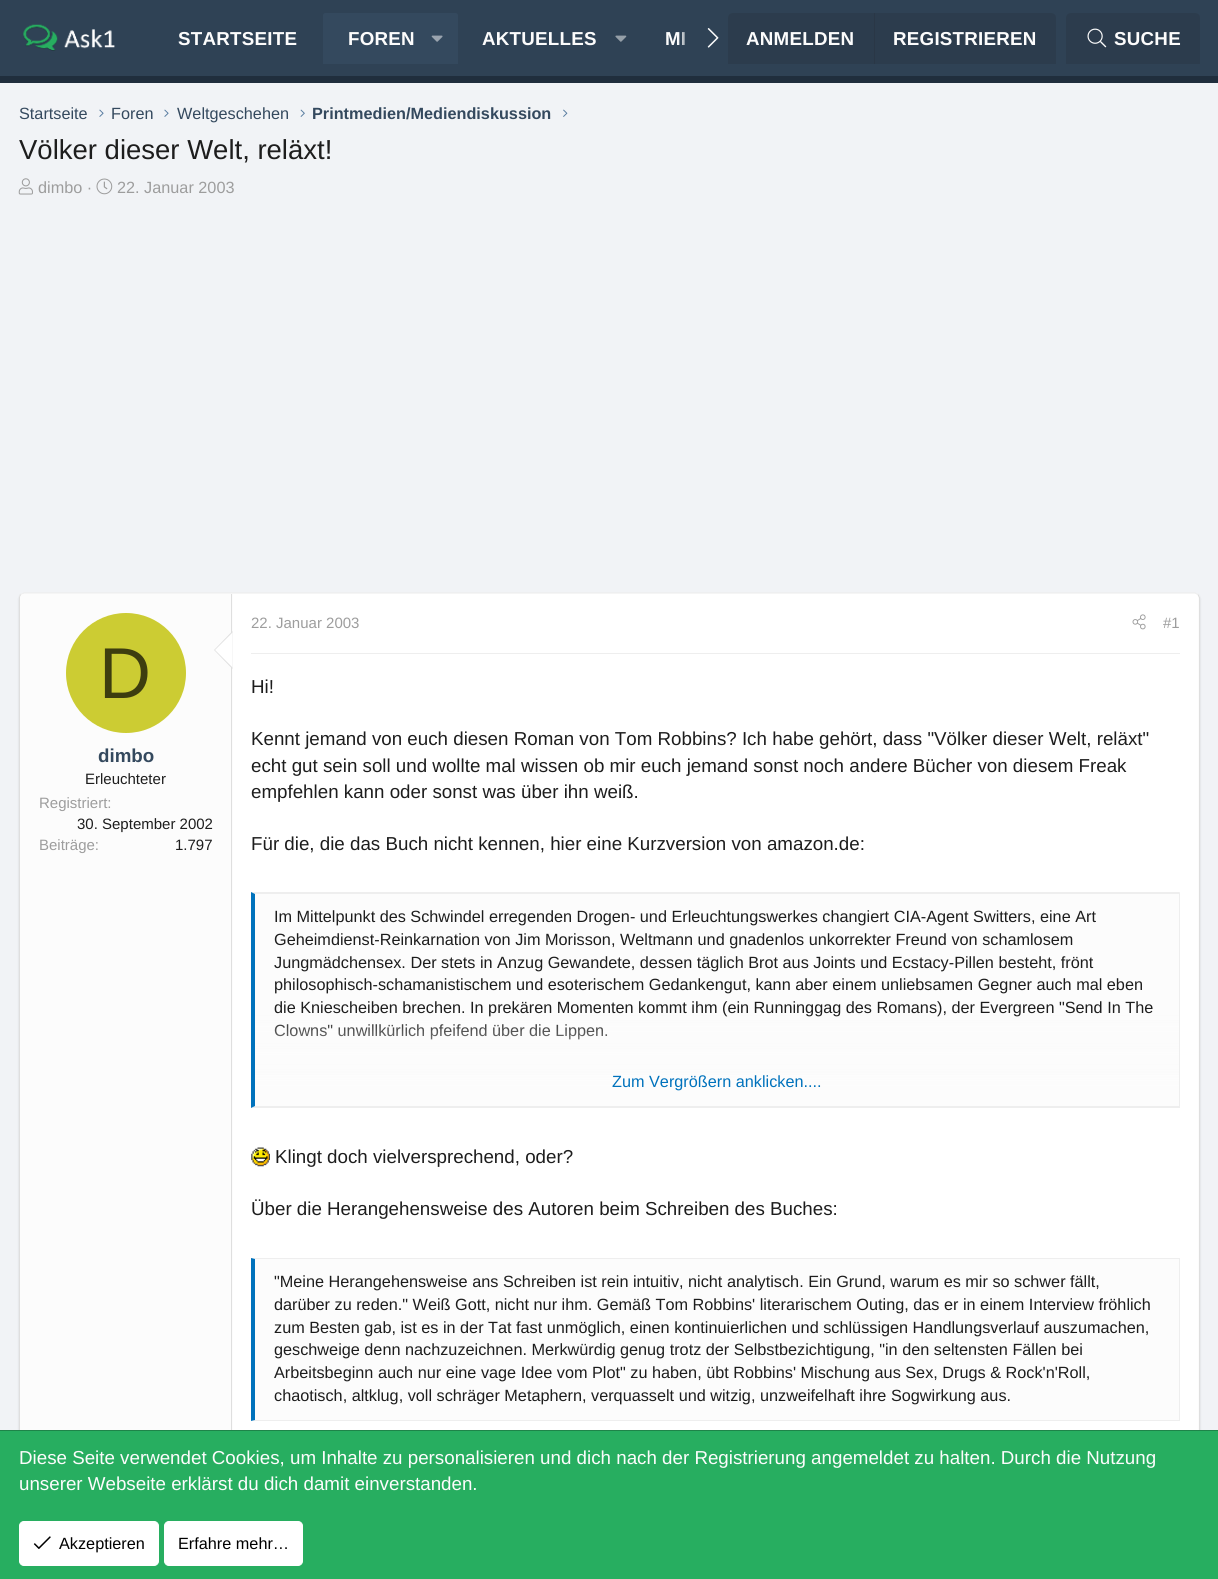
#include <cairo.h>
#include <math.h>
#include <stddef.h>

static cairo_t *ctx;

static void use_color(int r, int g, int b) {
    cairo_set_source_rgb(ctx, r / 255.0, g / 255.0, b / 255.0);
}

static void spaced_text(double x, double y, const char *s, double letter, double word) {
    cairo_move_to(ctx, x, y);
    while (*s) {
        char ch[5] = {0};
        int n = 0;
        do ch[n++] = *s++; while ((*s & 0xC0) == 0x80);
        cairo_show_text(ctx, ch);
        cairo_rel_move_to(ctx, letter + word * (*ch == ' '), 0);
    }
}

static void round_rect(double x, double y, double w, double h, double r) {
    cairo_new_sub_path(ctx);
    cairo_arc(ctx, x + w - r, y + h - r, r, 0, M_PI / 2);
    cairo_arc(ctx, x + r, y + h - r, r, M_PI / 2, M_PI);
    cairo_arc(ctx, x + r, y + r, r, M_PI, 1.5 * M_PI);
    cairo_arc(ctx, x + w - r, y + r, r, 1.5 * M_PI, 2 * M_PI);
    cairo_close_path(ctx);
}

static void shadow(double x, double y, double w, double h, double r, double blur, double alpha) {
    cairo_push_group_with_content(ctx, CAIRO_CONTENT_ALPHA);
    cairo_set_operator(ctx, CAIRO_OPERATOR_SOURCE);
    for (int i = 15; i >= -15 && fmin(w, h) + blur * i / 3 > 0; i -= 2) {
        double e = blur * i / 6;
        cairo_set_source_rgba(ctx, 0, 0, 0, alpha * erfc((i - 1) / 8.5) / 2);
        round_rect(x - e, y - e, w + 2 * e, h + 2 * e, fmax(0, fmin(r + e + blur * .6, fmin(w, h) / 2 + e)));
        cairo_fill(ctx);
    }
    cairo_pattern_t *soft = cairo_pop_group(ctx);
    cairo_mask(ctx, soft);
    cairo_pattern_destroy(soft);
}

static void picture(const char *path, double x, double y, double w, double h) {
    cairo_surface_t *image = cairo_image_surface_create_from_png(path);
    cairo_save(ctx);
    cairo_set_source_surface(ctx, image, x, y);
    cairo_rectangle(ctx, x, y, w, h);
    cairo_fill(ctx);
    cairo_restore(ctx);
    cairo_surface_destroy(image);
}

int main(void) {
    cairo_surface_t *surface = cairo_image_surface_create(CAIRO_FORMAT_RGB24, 1218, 1579);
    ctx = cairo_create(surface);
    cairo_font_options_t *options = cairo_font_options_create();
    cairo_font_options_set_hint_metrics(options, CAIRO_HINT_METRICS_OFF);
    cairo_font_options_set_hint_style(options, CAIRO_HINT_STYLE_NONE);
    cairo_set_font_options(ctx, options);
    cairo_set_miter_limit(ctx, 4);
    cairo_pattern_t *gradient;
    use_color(241, 243, 246);
    cairo_paint(ctx);
    use_color(47, 66, 85);
    cairo_rectangle(ctx, 0, 0, 1218, 76);
    cairo_fill(ctx);
    use_color(32, 46, 61);
    cairo_rectangle(ctx, 0, 76, 1218, 7);
    cairo_fill(ctx);
    picture("img1.png", 23, 24, 92, 27);
    cairo_select_font_face(ctx, "Liberation Sans", CAIRO_FONT_SLANT_NORMAL, CAIRO_FONT_WEIGHT_BOLD);
    cairo_set_font_size(ctx, 18.75);
    use_color(252, 252, 252);
    spaced_text(178, 45, "STARTSEITE", 0.25, 0);
    use_color(52, 73, 94);
    cairo_new_path(ctx);
    cairo_move_to(ctx, 325.5, 13);
    cairo_line_to(ctx, 455.5, 13);
    cairo_curve_to(ctx, 457, 13, 458, 14, 458, 15.5);
    cairo_line_to(ctx, 458, 64);
    cairo_line_to(ctx, 323, 64);
    cairo_line_to(ctx, 323, 15.5);
    cairo_curve_to(ctx, 323, 14, 324, 13, 325.5, 13);
    cairo_close_path(ctx);
    cairo_fill(ctx);
    use_color(252, 252, 252);
    spaced_text(348, 45, "FOREN", 0.25, 0);
    picture("img2.png", 431, 35, 12, 7);
    spaced_text(482, 45, "AKTUELLES", 0.25, 0);
    picture("img3.png", 615, 35, 12, 7);
    spaced_text(665, 45, "MI", 0.25, 0);
    gradient = cairo_pattern_create_linear(678, 38, 728, 38);
    cairo_pattern_add_color_stop_rgba(gradient, 0, 0.184, 0.259, 0.333, 0);
    cairo_pattern_add_color_stop_rgba(gradient, 0.33, 0.184, 0.259, 0.333, 1);
    cairo_set_source(ctx, gradient);
    cairo_pattern_destroy(gradient);
    cairo_rectangle(ctx, 678, 32, 7, 13);
    cairo_fill(ctx);
    picture("img4.png", 707, 28, 12, 20);
    use_color(44, 60, 77);
    cairo_new_path(ctx);
    cairo_move_to(ctx, 733, 13);
    cairo_line_to(ctx, 1051, 13);
    cairo_curve_to(ctx, 1054, 13, 1056, 15, 1056, 18);
    cairo_line_to(ctx, 1056, 64);
    cairo_line_to(ctx, 728, 64);
    cairo_line_to(ctx, 728, 18);
    cairo_curve_to(ctx, 728, 15, 730, 13, 733, 13);
    cairo_close_path(ctx);
    cairo_fill(ctx);
    use_color(252, 252, 252);
    spaced_text(746, 45, "ANMELDEN", 0.25, 0);
    use_color(42, 55, 70);
    cairo_rectangle(ctx, 874, 13, 1, 51);
    cairo_fill(ctx);
    use_color(252, 252, 252);
    spaced_text(893, 45, "REGISTRIEREN", 0.25, 0);
    use_color(44, 60, 77);
    cairo_new_path(ctx);
    cairo_move_to(ctx, 1071, 13);
    cairo_line_to(ctx, 1195, 13);
    cairo_curve_to(ctx, 1198, 13, 1200, 15, 1200, 18);
    cairo_line_to(ctx, 1200, 64);
    cairo_line_to(ctx, 1066, 64);
    cairo_line_to(ctx, 1066, 18);
    cairo_curve_to(ctx, 1066, 15, 1068, 13, 1071, 13);
    cairo_close_path(ctx);
    cairo_fill(ctx);
    picture("img5.png", 1087, 28, 20, 20);
    use_color(252, 252, 252);
    spaced_text(1114, 45, "SUCHE", 0.25, 0);
    cairo_select_font_face(ctx, "Liberation Sans", CAIRO_FONT_SLANT_NORMAL, CAIRO_FONT_WEIGHT_NORMAL);
    cairo_set_font_size(ctx, 16.25);
    use_color(52, 73, 94);
    cairo_move_to(ctx, 19, 119);
    cairo_show_text(ctx, "Startseite");
    picture("img6.png", 99, 109, 5, 8);
    cairo_move_to(ctx, 111, 119);
    cairo_show_text(ctx, "Foren");
    picture("img6.png", 164, 109, 5, 8);
    cairo_move_to(ctx, 177, 119);
    cairo_show_text(ctx, "Weltgeschehen");
    picture("img7.png", 300, 109, 5, 8);
    cairo_select_font_face(ctx, "Liberation Sans", CAIRO_FONT_SLANT_NORMAL, CAIRO_FONT_WEIGHT_BOLD);
    cairo_move_to(ctx, 312, 119);
    cairo_show_text(ctx, "Printmedien/Mediendiskussion");
    picture("img8.png", 563, 109, 5, 8);
    cairo_select_font_face(ctx, "Liberation Sans", CAIRO_FONT_SLANT_NORMAL, CAIRO_FONT_WEIGHT_NORMAL);
    cairo_set_font_size(ctx, 27.5);
    use_color(29, 29, 29);
    cairo_move_to(ctx, 19, 159);
    cairo_show_text(ctx, "Völker dieser Welt, reläxt!");
    picture("img9.png", 18, 178, 15, 17);
    cairo_set_font_size(ctx, 16.25);
    use_color(157, 157, 157);
    cairo_move_to(ctx, 38, 193);
    cairo_show_text(ctx, "dimbo ·");
    picture("img10.png", 96, 178, 17, 17);
    cairo_move_to(ctx, 117, 193);
    cairo_show_text(ctx, "22. Januar 2003");
    use_color(0, 0, 0);
    shadow(19, 594, 1181, 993, 5, 1, 0.1);
    use_color(255, 255, 255);
    round_rect(19, 593, 1181, 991, 5);
    cairo_fill(ctx);
    cairo_new_path(ctx);
    cairo_move_to(ctx, 20.5, 594.5);
    cairo_line_to(ctx, 24, 593);
    cairo_line_to(ctx, 1195, 593);
    cairo_line_to(ctx, 1198, 594.5);
    use_color(238, 238, 238);
    cairo_set_line_width(ctx, 1.2);
    cairo_stroke(ctx);
    cairo_new_path(ctx);
    cairo_move_to(ctx, 1198, 594.5);
    cairo_line_to(ctx, 1199.5, 597.5);
    cairo_line_to(ctx, 1199.5, 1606);
    cairo_line_to(ctx, 1198, 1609.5);
    use_color(223, 223, 223);
    cairo_stroke(ctx);
    cairo_new_path(ctx);
    cairo_move_to(ctx, 20.5, 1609.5);
    cairo_line_to(ctx, 19.5, 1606);
    cairo_line_to(ctx, 19.5, 597.5);
    cairo_line_to(ctx, 20.5, 594.5);
    cairo_stroke(ctx);
    use_color(252, 252, 252);
    cairo_new_path(ctx);
    cairo_move_to(ctx, 24, 594);
    cairo_line_to(ctx, 233, 594);
    cairo_line_to(ctx, 233, 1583);
    cairo_line_to(ctx, 24, 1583);
    cairo_curve_to(ctx, 22, 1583, 20, 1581, 20, 1579);
    cairo_line_to(ctx, 20, 598);
    cairo_curve_to(ctx, 20, 596, 22, 594, 24, 594);
    cairo_close_path(ctx);
    cairo_fill(ctx);
    use_color(223, 223, 223);
    cairo_rectangle(ctx, 231, 594, 1, 836);
    cairo_fill(ctx);
    use_color(204, 204, 51);
    cairo_arc(ctx, 126, 673, 60, 0, 2 * M_PI);
    cairo_fill(ctx);
    cairo_set_font_size(ctx, 72);
    use_color(61, 61, 15);
    cairo_move_to(ctx, 99, 698);
    cairo_show_text(ctx, "D");
    use_color(223, 223, 223);
    cairo_new_path(ctx);
    cairo_move_to(ctx, 232.5, 631);
    cairo_line_to(ctx, 232.5, 669);
    cairo_line_to(ctx, 214, 650);
    cairo_close_path(ctx);
    cairo_fill(ctx);
    use_color(255, 255, 255);
    cairo_new_path(ctx);
    cairo_move_to(ctx, 232.5, 632.5);
    cairo_line_to(ctx, 232.5, 667.5);
    cairo_line_to(ctx, 215, 650);
    cairo_close_path(ctx);
    cairo_fill(ctx);
    cairo_select_font_face(ctx, "Liberation Sans", CAIRO_FONT_SLANT_NORMAL, CAIRO_FONT_WEIGHT_BOLD);
    cairo_set_font_size(ctx, 18.75);
    use_color(52, 73, 94);
    cairo_move_to(ctx, 98, 762);
    cairo_show_text(ctx, "dimbo");
    cairo_select_font_face(ctx, "Liberation Sans", CAIRO_FONT_SLANT_NORMAL, CAIRO_FONT_WEIGHT_NORMAL);
    cairo_set_font_size(ctx, 15);
    use_color(29, 29, 29);
    cairo_move_to(ctx, 85, 784);
    cairo_show_text(ctx, "Erleuchteter");
    use_color(157, 157, 157);
    cairo_move_to(ctx, 39, 808);
    cairo_show_text(ctx, "Registriert:");
    use_color(29, 29, 29);
    cairo_move_to(ctx, 77, 829);
    cairo_show_text(ctx, "30. September 2002");
    use_color(157, 157, 157);
    cairo_move_to(ctx, 39, 850);
    cairo_show_text(ctx, "Beiträge:");
    use_color(29, 29, 29);
    cairo_move_to(ctx, 175, 850);
    cairo_show_text(ctx, "1.797");
    use_color(238, 238, 238);
    cairo_rectangle(ctx, 251, 653, 929, 1);
    cairo_fill(ctx);
    use_color(157, 157, 157);
    cairo_move_to(ctx, 251, 628);
    cairo_show_text(ctx, "22. Januar 2003");
    picture("img11.png", 1132, 614, 14, 16);
    cairo_move_to(ctx, 1163, 628);
    cairo_show_text(ctx, "#1");
    cairo_set_font_size(ctx, 18.75);
    use_color(29, 29, 29);
    cairo_move_to(ctx, 251, 693);
    cairo_show_text(ctx, "Hi!");
    cairo_move_to(ctx, 251, 745);
    cairo_show_text(ctx, "Kennt jemand von euch diesen Roman von Tom Robbins? Ich habe gehört, dass \"Völker dieser Welt, reläxt\"");
    cairo_move_to(ctx, 251, 772);
    cairo_show_text(ctx, "echt gut sein soll und wollte mal wissen ob mir euch jemand sonst noch andere Bücher von diesem Freak");
    cairo_move_to(ctx, 251, 798);
    cairo_show_text(ctx, "empfehlen kann oder sonst was über ihn weiß.");
    cairo_move_to(ctx, 251, 850);
    cairo_show_text(ctx, "Für die, die das Buch nicht kennen, hier eine Kurzversion von amazon.de:");
    use_color(252, 252, 252);
    cairo_rectangle(ctx, 255, 894, 924, 193);
    cairo_fill(ctx);
    use_color(238, 238, 238);
    cairo_new_path(ctx);
    cairo_move_to(ctx, 251, 892);
    cairo_line_to(ctx, 1180, 892);
    cairo_line_to(ctx, 1179, 894);
    cairo_line_to(ctx, 255, 894);
    cairo_close_path(ctx);
    cairo_fill(ctx);
    cairo_rectangle(ctx, 1179, 893, 1, 215);
    cairo_fill(ctx);
    cairo_new_path(ctx);
    cairo_move_to(ctx, 1180, 1108);
    cairo_line_to(ctx, 251, 1108);
    cairo_line_to(ctx, 255, 1106);
    cairo_line_to(ctx, 1179, 1106);
    cairo_close_path(ctx);
    cairo_fill(ctx);
    use_color(0, 114, 188);
    cairo_new_path(ctx);
    cairo_move_to(ctx, 251, 1108);
    cairo_line_to(ctx, 251, 892);
    cairo_line_to(ctx, 255, 894);
    cairo_line_to(ctx, 255, 1106);
    cairo_close_path(ctx);
    cairo_fill(ctx);
    cairo_set_font_size(ctx, 16.25);
    use_color(29, 29, 29);
    cairo_move_to(ctx, 274, 922);
    cairo_show_text(ctx, "Im Mittelpunkt des Schwindel erregenden Drogen- und Erleuchtungswerkes changiert CIA-Agent Switters, eine Art");
    cairo_move_to(ctx, 274, 945);
    cairo_show_text(ctx, "Geheimdienst-Reinkarnation von Jim Morisson, Weltmann und gnadenlos unkorrekter Freund von schamlosem");
    cairo_move_to(ctx, 274, 968);
    cairo_show_text(ctx, "Jungmädchensex. Der stets in Anzug Gewandete, dessen täglich Brot aus Joints und Ecstacy-Pillen besteht, frönt");
    cairo_move_to(ctx, 274, 990);
    cairo_show_text(ctx, "philosophisch-schamanistischem und esoterischem Gedankengut, kann aber einem unliebsamen Gegner auch mal eben");
    cairo_move_to(ctx, 274, 1013);
    cairo_show_text(ctx, "die Kniescheiben brechen. In prekären Momenten kommt ihm (ein Runninggag des Romans), der Evergreen \"Send In The");
    cairo_move_to(ctx, 274, 1036);
    cairo_show_text(ctx, "Clowns\" unwillkürlich pfeifend über die Lippen.");
    gradient = cairo_pattern_create_linear(717, 1013, 717, 1106);
    cairo_pattern_add_color_stop_rgba(gradient, 0, 0.988, 0.988, 0.988, 0);
    cairo_pattern_add_color_stop_rgba(gradient, 0.8, 0.988, 0.988, 0.988, 1);
    cairo_set_source(ctx, gradient);
    cairo_pattern_destroy(gradient);
    cairo_rectangle(ctx, 255, 1015, 924, 91);
    cairo_fill(ctx);
    use_color(0, 114, 188);
    cairo_move_to(ctx, 612, 1087);
    cairo_show_text(ctx, "Zum Vergrößern anklicken....");
    picture("img12.png", 251, 1147, 19, 20);
    cairo_set_font_size(ctx, 18.75);
    use_color(29, 29, 29);
    cairo_move_to(ctx, 275, 1163);
    cairo_show_text(ctx, "Klingt doch vielversprechend, oder?");
    cairo_move_to(ctx, 251, 1215);
    cairo_show_text(ctx, "Über die Herangehensweise des Autoren beim Schreiben des Buches:");
    use_color(252, 252, 252);
    cairo_rectangle(ctx, 255, 1259, 924, 161);
    cairo_fill(ctx);
    use_color(238, 238, 238);
    cairo_new_path(ctx);
    cairo_move_to(ctx, 251, 1258);
    cairo_line_to(ctx, 1180, 1258);
    cairo_line_to(ctx, 1179, 1259);
    cairo_line_to(ctx, 255, 1259);
    cairo_close_path(ctx);
    cairo_fill(ctx);
    cairo_rectangle(ctx, 1179, 1258, 1, 163);
    cairo_fill(ctx);
    cairo_new_path(ctx);
    cairo_move_to(ctx, 1180, 1421);
    cairo_line_to(ctx, 251, 1421);
    cairo_line_to(ctx, 255, 1420);
    cairo_line_to(ctx, 1179, 1420);
    cairo_close_path(ctx);
    cairo_fill(ctx);
    use_color(0, 114, 188);
    cairo_new_path(ctx);
    cairo_move_to(ctx, 251, 1421);
    cairo_line_to(ctx, 251, 1258);
    cairo_line_to(ctx, 255, 1259);
    cairo_line_to(ctx, 255, 1420);
    cairo_close_path(ctx);
    cairo_fill(ctx);
    cairo_set_font_size(ctx, 16.25);
    use_color(29, 29, 29);
    cairo_move_to(ctx, 274, 1287);
    cairo_show_text(ctx, "\"Meine Herangehensweise ans Schreiben ist rein intuitiv, nicht analytisch. Ein Grund, warum es mir so schwer fällt,");
    cairo_move_to(ctx, 274, 1310);
    cairo_show_text(ctx, "darüber zu reden.\" Weiß Gott, nicht nur ihm. Gemäß Tom Robbins' literarischem Outing, das er in einem Interview fröhlich");
    cairo_move_to(ctx, 274, 1333);
    cairo_show_text(ctx, "zum Besten gab, ist es in der Tat fast unmöglich, einen kontinuierlichen und schlüssigen Handlungsverlauf auszumachen,");
    cairo_move_to(ctx, 274, 1355);
    cairo_show_text(ctx, "geschweige denn nachzuzeichnen. Merkwürdig genug trotz der Selbstbezichtigung, \"in den seltensten Fällen bei");
    cairo_move_to(ctx, 274, 1378);
    cairo_show_text(ctx, "Arbeitsbeginn auch nur eine vage Idee vom Plot\" zu haben, übt Robbins' Mischung aus Sex, Drugs & Rock'n'Roll,");
    cairo_move_to(ctx, 274, 1401);
    cairo_show_text(ctx, "chaotisch, altklug, voll schräger Metaphern, verquasselt und witzig, unzweifelhaft ihre Sogwirkung aus.");
    use_color(39, 174, 96);
    cairo_rectangle(ctx, 0, 1431, 1218, 148);
    cairo_fill(ctx);
    use_color(30, 132, 73);
    cairo_rectangle(ctx, 0, 1430, 1218, 1);
    cairo_fill(ctx);
    cairo_set_font_size(ctx, 18.75);
    use_color(252, 252, 252);
    cairo_move_to(ctx, 19, 1464);
    cairo_show_text(ctx, "Diese Seite verwendet Cookies, um Inhalte zu personalisieren und dich nach der Registrierung angemeldet zu halten. Durch die Nutzung");
    cairo_move_to(ctx, 19, 1490);
    cairo_show_text(ctx, "unserer Webseite erklärst du dich damit einverstanden.");
    use_color(255, 255, 255);
    round_rect(19.5, 1521.5, 139, 44, 4.5);
    cairo_fill_preserve(ctx);
    cairo_set_line_width(ctx, 1);
    cairo_stroke(ctx);
    picture("img13.png", 33, 1536, 18, 13);
    cairo_set_font_size(ctx, 16.25);
    use_color(0, 0, 0);
    cairo_move_to(ctx, 59, 1549);
    cairo_show_text(ctx, "Akzeptieren");
    use_color(255, 255, 255);
    round_rect(164.5, 1521.5, 138, 44, 4.5);
    cairo_fill_preserve(ctx);
    cairo_stroke(ctx);
    use_color(0, 0, 0);
    cairo_move_to(ctx, 178, 1549);
    cairo_show_text(ctx, "Erfahre mehr…");
    cairo_surface_write_to_png(surface, "result.png");
    cairo_font_options_destroy(options);
    cairo_destroy(ctx);
    cairo_surface_destroy(surface);
    return 0;
}
